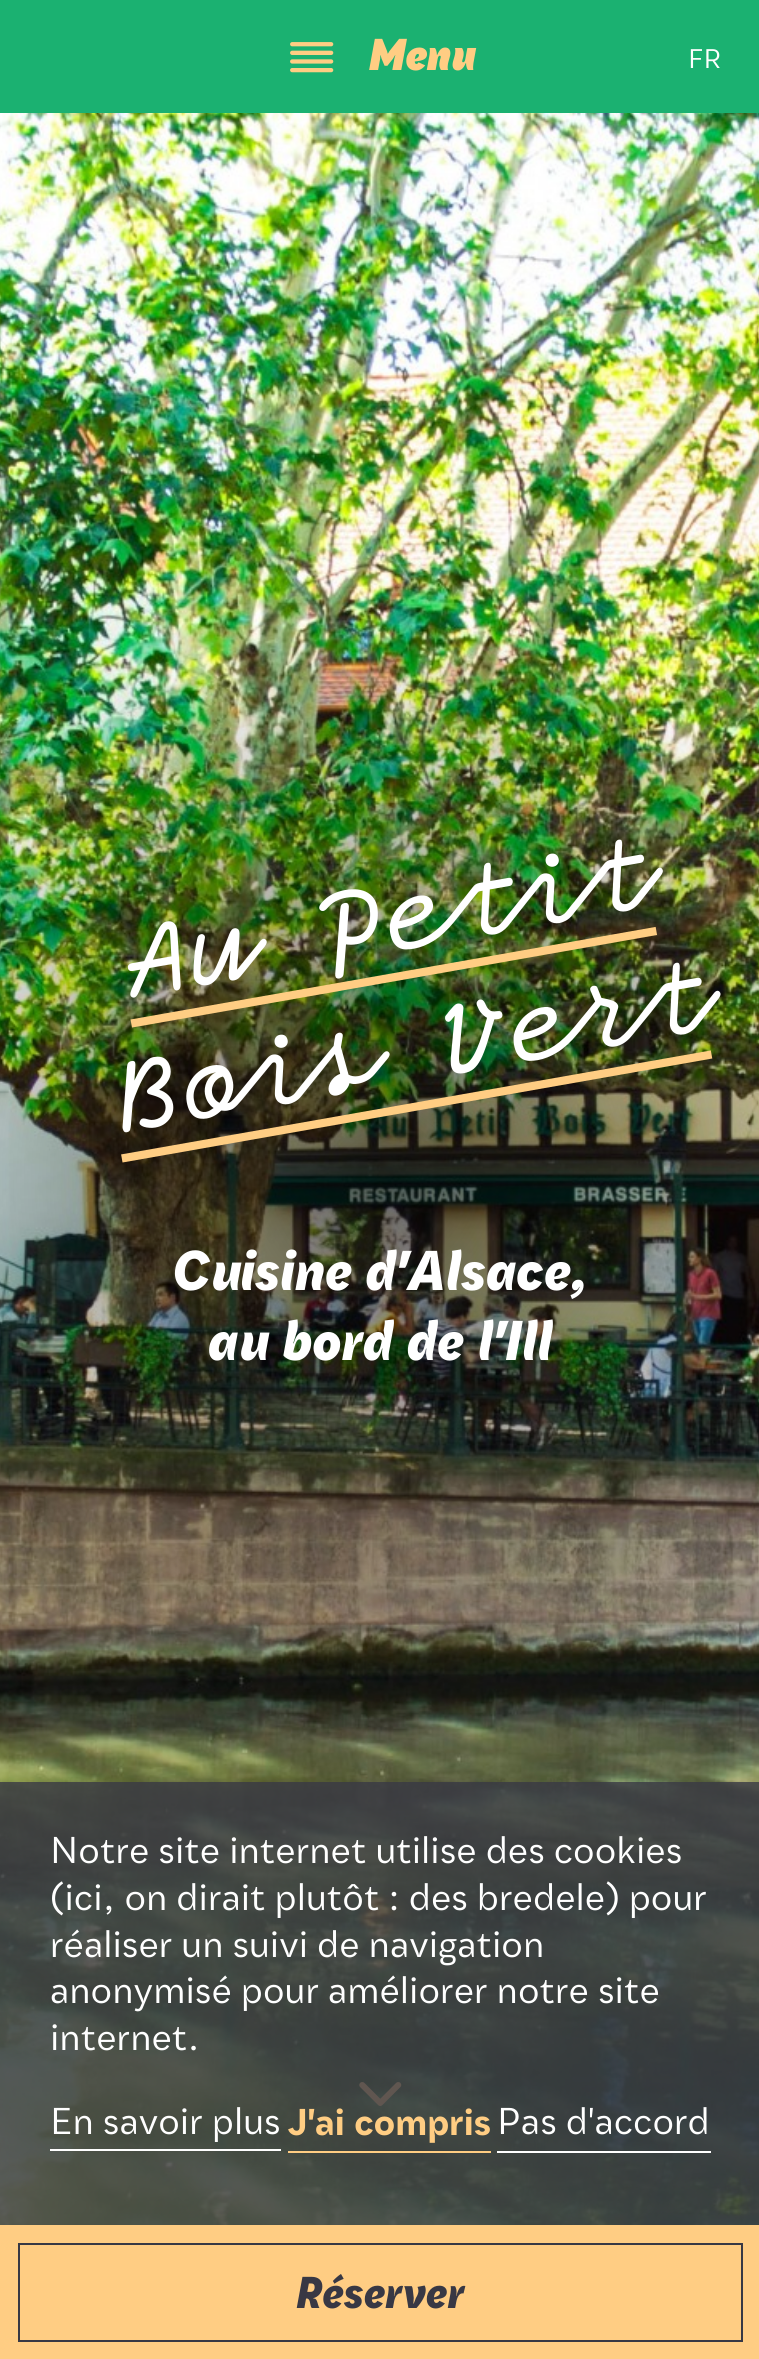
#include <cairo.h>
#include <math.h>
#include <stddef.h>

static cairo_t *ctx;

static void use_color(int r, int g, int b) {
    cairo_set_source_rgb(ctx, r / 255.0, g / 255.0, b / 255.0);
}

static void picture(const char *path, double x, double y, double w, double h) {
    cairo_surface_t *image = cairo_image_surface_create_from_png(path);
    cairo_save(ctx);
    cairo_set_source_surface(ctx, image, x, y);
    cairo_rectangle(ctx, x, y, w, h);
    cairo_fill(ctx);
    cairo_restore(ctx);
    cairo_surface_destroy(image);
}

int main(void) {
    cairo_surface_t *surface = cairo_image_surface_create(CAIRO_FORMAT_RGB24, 759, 2359);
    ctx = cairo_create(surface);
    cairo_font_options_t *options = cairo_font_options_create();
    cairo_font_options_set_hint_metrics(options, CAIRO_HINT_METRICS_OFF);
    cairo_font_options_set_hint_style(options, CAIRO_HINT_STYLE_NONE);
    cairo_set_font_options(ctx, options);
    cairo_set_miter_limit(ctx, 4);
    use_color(255, 255, 255);
    cairo_paint(ctx);
    use_color(27, 177, 113);
    cairo_rectangle(ctx, 0, 0, 759, 113);
    cairo_fill(ctx);
    picture("img1.png", 290, 42, 44, 31);
    cairo_select_font_face(ctx, "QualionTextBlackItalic", CAIRO_FONT_SLANT_NORMAL, CAIRO_FONT_WEIGHT_NORMAL);
    cairo_set_font_size(ctx, 43);
    use_color(255, 205, 131);
    cairo_move_to(ctx, 369, 70);
    cairo_show_text(ctx, "Menu");
    cairo_select_font_face(ctx, "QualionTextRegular", CAIRO_FONT_SLANT_NORMAL, CAIRO_FONT_WEIGHT_NORMAL);
    cairo_set_font_size(ctx, 26);
    use_color(255, 255, 255);
    cairo_move_to(ctx, 688, 68);
    cairo_show_text(ctx, "FR");
    picture("img2.png", 0, 113, 759, 2112);
    picture("img3.png", 121, 839, 600, 324);
    cairo_select_font_face(ctx, "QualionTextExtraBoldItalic", CAIRO_FONT_SLANT_NORMAL, CAIRO_FONT_WEIGHT_NORMAL);
    cairo_set_font_size(ctx, 54);
    cairo_move_to(ctx, 172, 1290);
    cairo_show_text(ctx, "Cuisine d'Alsace,");
    cairo_move_to(ctx, 208, 1360);
    cairo_show_text(ctx, "au bord de l'Ill");
    picture("img4.png", 359, 2082, 43, 24);
    cairo_set_source_rgba(ctx, 0.22, 0.22, 0.267, 0.8);
    cairo_rectangle(ctx, 0, 1782, 759, 443);
    cairo_fill(ctx);
    cairo_select_font_face(ctx, "QualionTextRegular", CAIRO_FONT_SLANT_NORMAL, CAIRO_FONT_WEIGHT_NORMAL);
    cairo_set_font_size(ctx, 36);
    use_color(255, 255, 255);
    cairo_move_to(ctx, 50, 1863);
    cairo_show_text(ctx, "Notre site internet utilise des cookies");
    cairo_move_to(ctx, 50, 1910);
    cairo_show_text(ctx, "(ici, on dirait plutôt : des bredele) pour");
    cairo_move_to(ctx, 50, 1957);
    cairo_show_text(ctx, "réaliser un suivi de navigation");
    cairo_move_to(ctx, 50, 2003);
    cairo_show_text(ctx, "anonymisé pour améliorer notre site");
    cairo_move_to(ctx, 50, 2050);
    cairo_show_text(ctx, "internet.");
    cairo_rectangle(ctx, 50, 2149, 231, 2);
    cairo_fill(ctx);
    cairo_move_to(ctx, 50, 2134);
    cairo_show_text(ctx, "En savoir plus");
    use_color(255, 205, 131);
    cairo_rectangle(ctx, 288, 2151, 203, 2);
    cairo_fill(ctx);
    cairo_select_font_face(ctx, "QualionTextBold", CAIRO_FONT_SLANT_NORMAL, CAIRO_FONT_WEIGHT_NORMAL);
    cairo_move_to(ctx, 287, 2135);
    cairo_show_text(ctx, "J'ai compris");
    use_color(255, 255, 255);
    cairo_rectangle(ctx, 497, 2151, 214, 2);
    cairo_fill(ctx);
    cairo_select_font_face(ctx, "QualionTextRegular", CAIRO_FONT_SLANT_NORMAL, CAIRO_FONT_WEIGHT_NORMAL);
    cairo_move_to(ctx, 497, 2134);
    cairo_show_text(ctx, "Pas d'accord");
    use_color(255, 205, 131);
    cairo_rectangle(ctx, 0, 2225, 759, 134);
    cairo_fill(ctx);
    cairo_rectangle(ctx, 19, 2244, 723, 97);
    use_color(56, 56, 68);
    cairo_stroke(ctx);
    cairo_select_font_face(ctx, "QualionTextExtraBoldItalic", CAIRO_FONT_SLANT_NORMAL, CAIRO_FONT_WEIGHT_NORMAL);
    cairo_set_font_size(ctx, 43);
    cairo_move_to(ctx, 296, 2308);
    cairo_show_text(ctx, "Réserver");
    cairo_surface_write_to_png(surface, "result.png");
    cairo_font_options_destroy(options);
    cairo_destroy(ctx);
    cairo_surface_destroy(surface);
    return 0;
}
